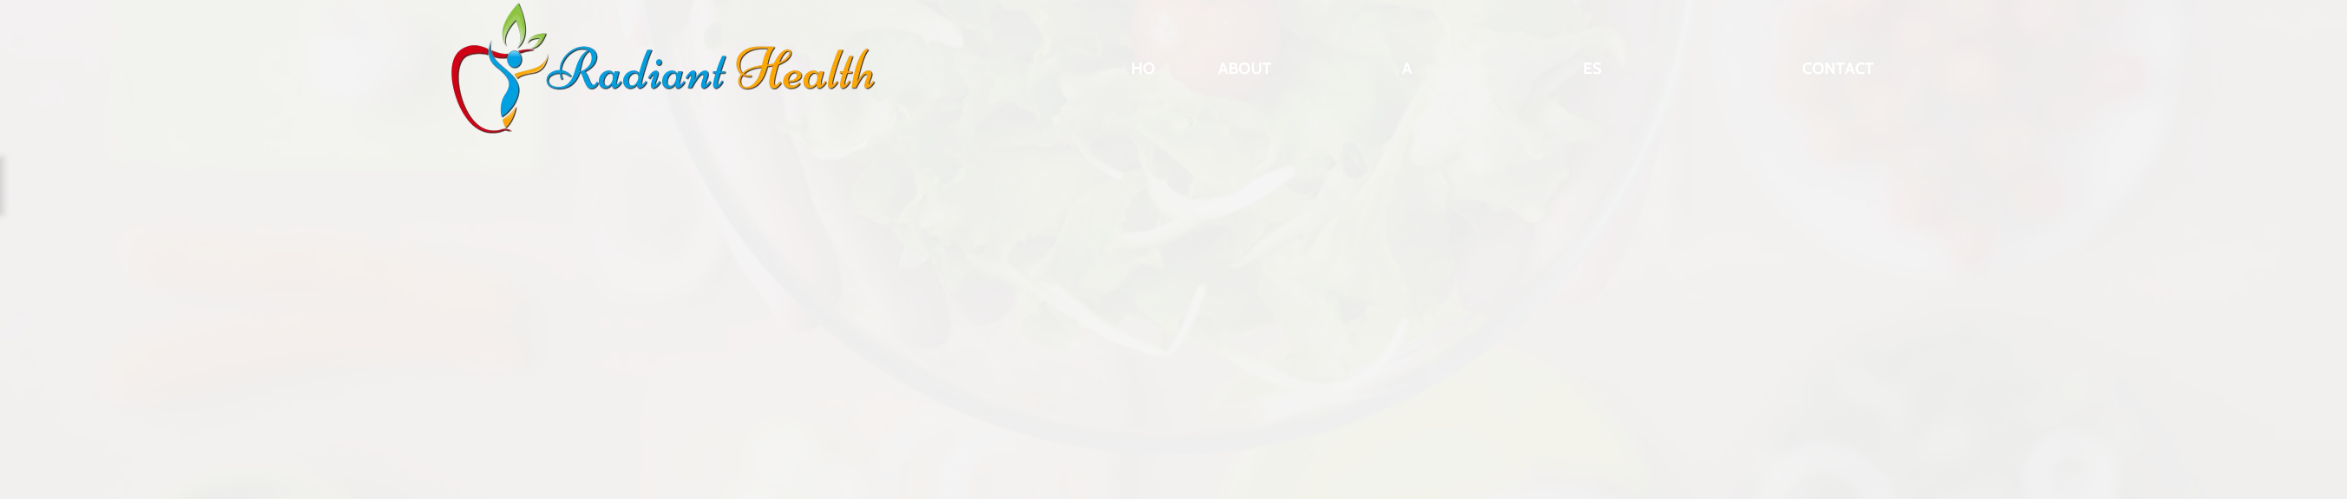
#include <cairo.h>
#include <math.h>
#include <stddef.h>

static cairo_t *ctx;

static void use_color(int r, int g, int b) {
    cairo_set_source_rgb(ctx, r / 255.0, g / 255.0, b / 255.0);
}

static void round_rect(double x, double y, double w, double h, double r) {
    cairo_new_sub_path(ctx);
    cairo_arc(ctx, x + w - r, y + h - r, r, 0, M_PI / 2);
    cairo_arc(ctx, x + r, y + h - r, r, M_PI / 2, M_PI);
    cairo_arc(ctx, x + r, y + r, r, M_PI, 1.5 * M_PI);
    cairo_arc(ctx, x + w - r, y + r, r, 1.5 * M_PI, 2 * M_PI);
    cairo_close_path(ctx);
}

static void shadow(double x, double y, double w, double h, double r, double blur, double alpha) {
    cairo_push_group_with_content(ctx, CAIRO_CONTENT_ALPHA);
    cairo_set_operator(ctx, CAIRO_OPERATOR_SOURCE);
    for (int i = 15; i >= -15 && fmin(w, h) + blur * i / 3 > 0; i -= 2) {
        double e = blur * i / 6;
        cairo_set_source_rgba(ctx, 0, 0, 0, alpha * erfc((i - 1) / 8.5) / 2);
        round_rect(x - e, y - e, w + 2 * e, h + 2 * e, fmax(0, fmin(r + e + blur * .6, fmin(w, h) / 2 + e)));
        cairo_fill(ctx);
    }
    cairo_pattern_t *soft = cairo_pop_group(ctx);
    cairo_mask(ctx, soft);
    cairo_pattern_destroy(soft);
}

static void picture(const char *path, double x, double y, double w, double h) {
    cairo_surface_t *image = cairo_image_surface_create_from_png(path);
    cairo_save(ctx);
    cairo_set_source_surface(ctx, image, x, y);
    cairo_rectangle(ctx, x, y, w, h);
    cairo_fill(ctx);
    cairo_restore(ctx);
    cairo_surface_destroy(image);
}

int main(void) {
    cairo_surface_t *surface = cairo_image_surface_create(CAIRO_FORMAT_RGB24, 2347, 499);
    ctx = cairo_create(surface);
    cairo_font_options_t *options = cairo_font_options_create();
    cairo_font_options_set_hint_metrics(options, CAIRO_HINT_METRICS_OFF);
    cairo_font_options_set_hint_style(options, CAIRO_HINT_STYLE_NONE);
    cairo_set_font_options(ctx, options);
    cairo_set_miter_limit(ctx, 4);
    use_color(255, 255, 255);
    cairo_paint(ctx);
    picture("img1.png", 0, 0, 2347, 499);
    picture("img2.png", 451, 2, 425, 132);
    cairo_select_font_face(ctx, "Cabin", CAIRO_FONT_SLANT_NORMAL, CAIRO_FONT_WEIGHT_BOLD);
    cairo_set_font_size(ctx, 16.25);
    use_color(255, 255, 255);
    cairo_move_to(ctx, 1131, 74);
    cairo_show_text(ctx, "HO");
    cairo_move_to(ctx, 1218, 74);
    cairo_show_text(ctx, "ABOUT");
    cairo_move_to(ctx, 1402, 74);
    cairo_show_text(ctx, "A");
    cairo_move_to(ctx, 1583, 74);
    cairo_show_text(ctx, "ES");
    cairo_move_to(ctx, 1802, 74);
    cairo_show_text(ctx, "CONTACT");
    use_color(0, 0, 0);
    shadow(-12, 158, 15, 56, 0, 4, 0.16);
    cairo_surface_write_to_png(surface, "result.png");
    cairo_font_options_destroy(options);
    cairo_destroy(ctx);
    cairo_surface_destroy(surface);
    return 0;
}
